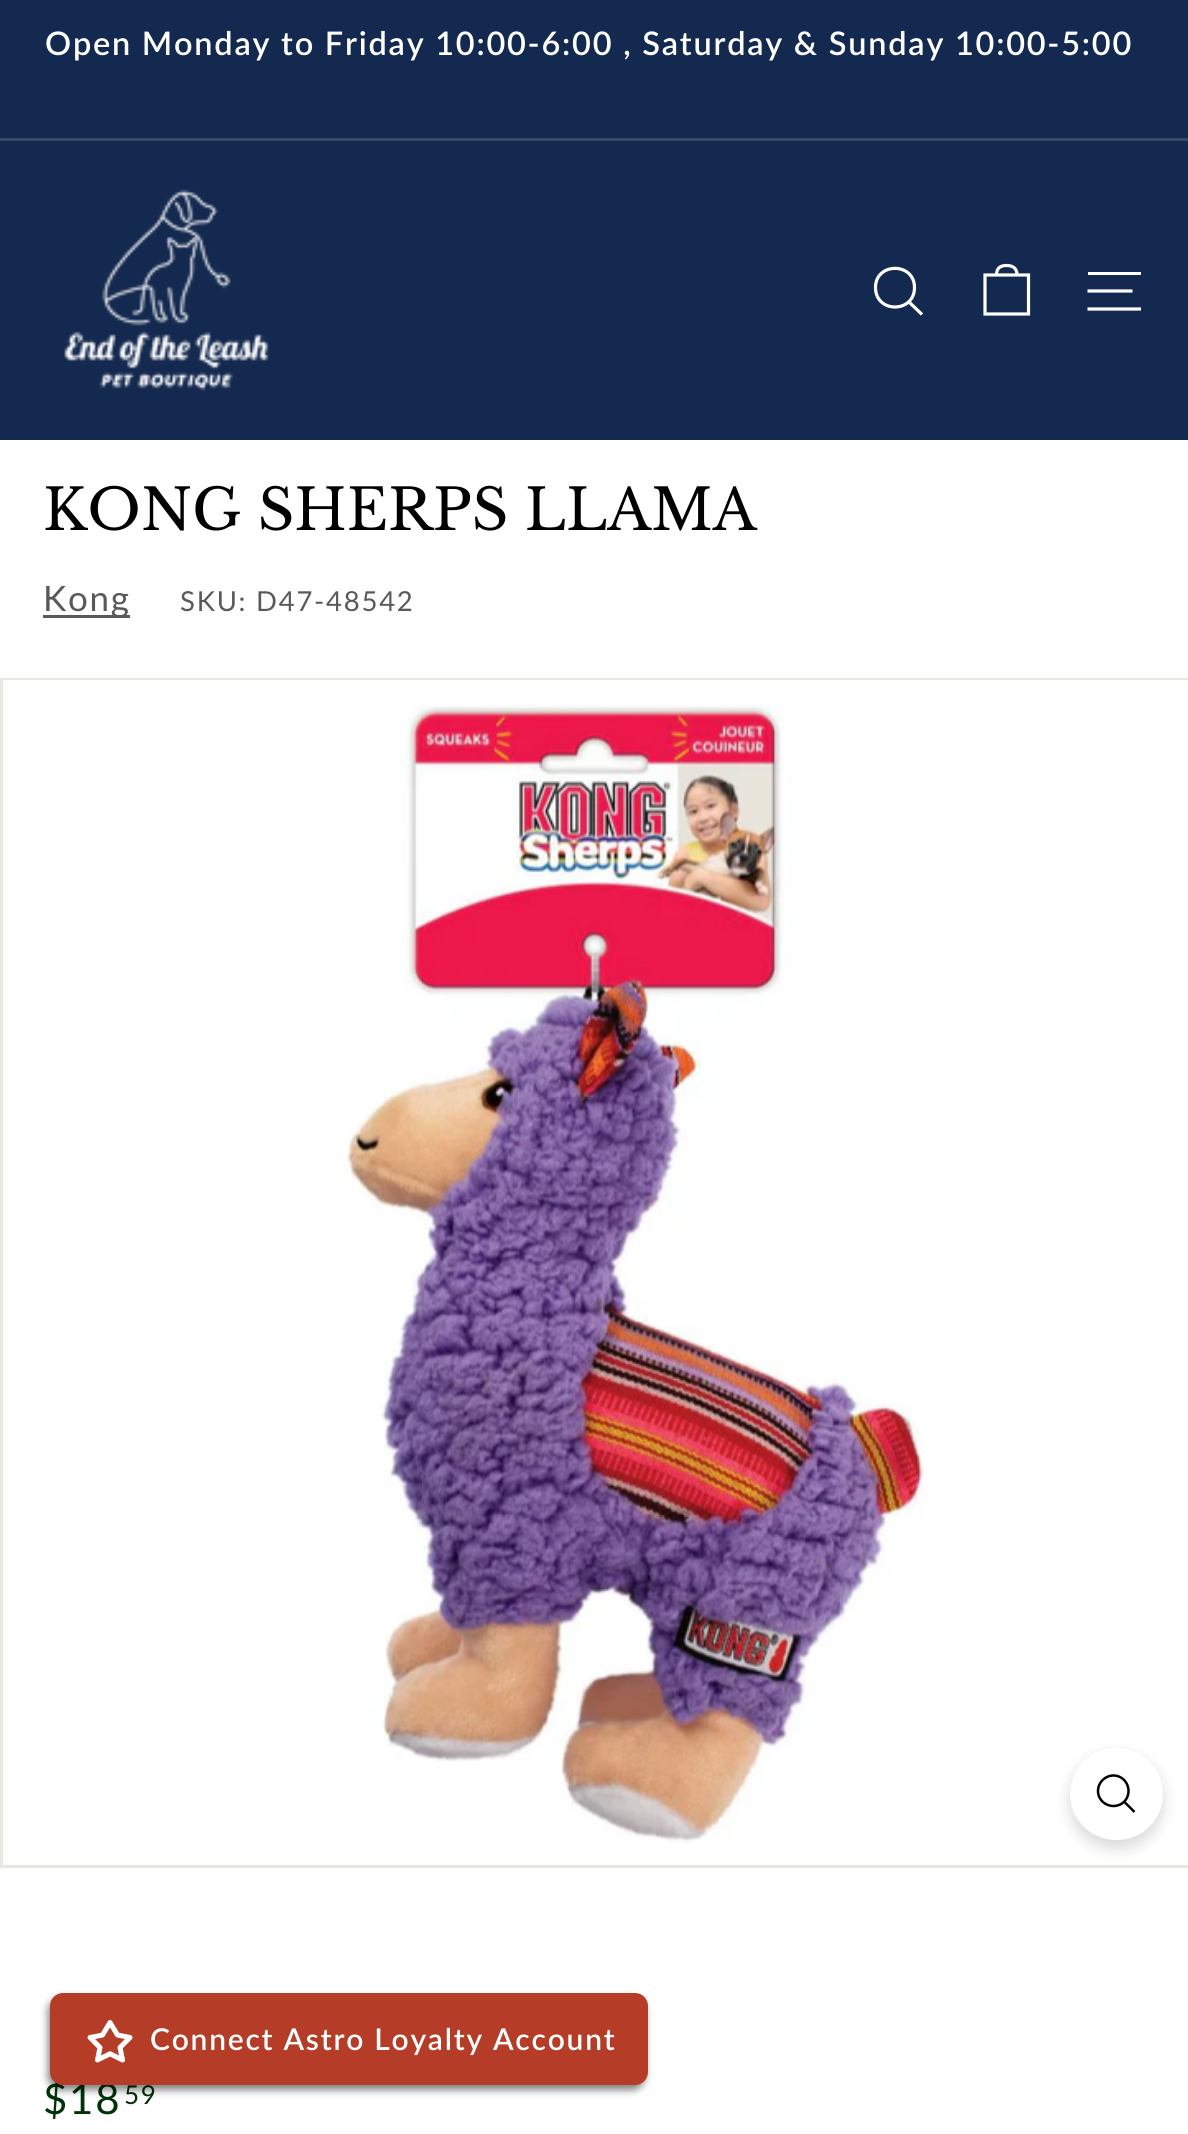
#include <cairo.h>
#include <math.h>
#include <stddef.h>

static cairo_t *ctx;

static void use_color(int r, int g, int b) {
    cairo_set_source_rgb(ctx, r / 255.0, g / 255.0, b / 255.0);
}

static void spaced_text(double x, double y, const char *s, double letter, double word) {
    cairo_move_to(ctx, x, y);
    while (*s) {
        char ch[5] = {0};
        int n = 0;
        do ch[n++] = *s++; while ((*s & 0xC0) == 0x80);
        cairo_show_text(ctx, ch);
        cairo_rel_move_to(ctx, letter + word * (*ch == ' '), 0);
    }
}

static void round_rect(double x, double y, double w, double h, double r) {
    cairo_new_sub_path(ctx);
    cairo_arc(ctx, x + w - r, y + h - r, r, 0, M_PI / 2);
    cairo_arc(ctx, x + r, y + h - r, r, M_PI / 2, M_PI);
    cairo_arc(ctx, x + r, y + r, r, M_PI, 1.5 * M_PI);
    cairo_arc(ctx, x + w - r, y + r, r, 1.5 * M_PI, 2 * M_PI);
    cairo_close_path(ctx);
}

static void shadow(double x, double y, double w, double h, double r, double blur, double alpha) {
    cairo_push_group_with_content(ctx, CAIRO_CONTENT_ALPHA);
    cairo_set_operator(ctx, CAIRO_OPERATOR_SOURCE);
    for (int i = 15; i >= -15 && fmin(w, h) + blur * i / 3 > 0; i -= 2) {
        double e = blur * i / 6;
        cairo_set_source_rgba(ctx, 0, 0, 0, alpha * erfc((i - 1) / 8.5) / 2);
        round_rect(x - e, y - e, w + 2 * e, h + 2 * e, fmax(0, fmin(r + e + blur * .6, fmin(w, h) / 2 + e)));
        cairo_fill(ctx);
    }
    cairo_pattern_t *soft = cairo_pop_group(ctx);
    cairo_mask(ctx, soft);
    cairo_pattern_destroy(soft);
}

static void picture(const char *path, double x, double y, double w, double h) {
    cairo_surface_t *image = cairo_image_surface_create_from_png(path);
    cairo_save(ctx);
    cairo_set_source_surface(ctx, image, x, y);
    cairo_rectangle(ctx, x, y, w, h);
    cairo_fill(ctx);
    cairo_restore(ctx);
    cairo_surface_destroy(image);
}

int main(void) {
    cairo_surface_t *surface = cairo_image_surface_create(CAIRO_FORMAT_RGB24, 1188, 2134);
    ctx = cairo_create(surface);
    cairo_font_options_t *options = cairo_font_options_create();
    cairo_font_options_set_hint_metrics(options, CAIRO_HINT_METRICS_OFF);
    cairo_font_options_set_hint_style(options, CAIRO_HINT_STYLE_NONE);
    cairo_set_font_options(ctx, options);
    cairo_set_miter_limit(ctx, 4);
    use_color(255, 255, 255);
    cairo_paint(ctx);
    use_color(20, 41, 79);
    cairo_rectangle(ctx, 0, 0, 1188, 138);
    cairo_fill(ctx);
    cairo_select_font_face(ctx, "Lato SemiBold", CAIRO_FONT_SLANT_NORMAL, CAIRO_FONT_WEIGHT_NORMAL);
    cairo_set_font_size(ctx, 32.5);
    use_color(255, 255, 255);
    spaced_text(45, 55, "Open Monday to Friday 10:00-6:00 , Saturday & Sunday 10:00-5:00", 1.75, 0);
    use_color(55, 73, 105);
    cairo_rectangle(ctx, 0, 138, 1188, 3);
    cairo_fill(ctx);
    use_color(20, 41, 79);
    cairo_rectangle(ctx, 0, 141, 1188, 299);
    cairo_fill(ctx);
    picture("img1.png", 64, 189, 205, 202);
    cairo_new_path(ctx);
    cairo_move_to(ctx, 914.5, 287.5);
    cairo_curve_to(ctx, 914.5, 313.5, 875.5, 313.5, 875.5, 287.5);
    cairo_curve_to(ctx, 875.5, 262, 914.5, 262, 914.5, 287.5);
    cairo_close_path(ctx);
    cairo_move_to(ctx, 922, 314.5);
    cairo_line_to(ctx, 909, 302);
    use_color(255, 255, 255);
    cairo_set_line_width(ctx, 3.2);
    cairo_stroke(ctx);
    cairo_new_path(ctx);
    cairo_move_to(ctx, 996.5, 275);
    cairo_curve_to(ctx, 996.5, 267.5, 1001, 265.5, 1006.5, 265.5);
    cairo_curve_to(ctx, 1012, 265.5, 1017, 267.5, 1017, 275);
    cairo_move_to(ctx, 985, 275);
    cairo_line_to(ctx, 1028.5, 275);
    cairo_line_to(ctx, 1028.5, 314);
    cairo_line_to(ctx, 985, 314);
    cairo_close_path(ctx);
    cairo_stroke(ctx);
    cairo_rectangle(ctx, 1088, 272, 53, 3);
    cairo_fill(ctx);
    cairo_new_path(ctx);
    cairo_move_to(ctx, 1087.5, 291);
    cairo_line_to(ctx, 1132.5, 291);
    cairo_move_to(ctx, 1087.5, 309);
    cairo_line_to(ctx, 1141, 309);
    cairo_stroke(ctx);
    cairo_select_font_face(ctx, "Libre Baskerville", CAIRO_FONT_SLANT_NORMAL, CAIRO_FONT_WEIGHT_NORMAL);
    cairo_set_font_size(ctx, 56.75);
    use_color(0, 0, 0);
    cairo_move_to(ctx, 43, 530);
    cairo_show_text(ctx, "KONG SHERPS LLAMA");
    use_color(89, 89, 89);
    cairo_rectangle(ctx, 43, 615, 87, 3);
    cairo_fill(ctx);
    cairo_select_font_face(ctx, "Lato", CAIRO_FONT_SLANT_NORMAL, CAIRO_FONT_WEIGHT_NORMAL);
    cairo_set_font_size(ctx, 35);
    spaced_text(43, 611, "Kong", 1.75, 0);
    cairo_set_font_size(ctx, 27.5);
    spaced_text(180, 611, "SKU: D47-48542", 1.75, 0);
    cairo_rectangle(ctx, 1.5, 679.5, 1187, 1187);
    use_color(232, 232, 225);
    cairo_set_line_width(ctx, 3);
    cairo_stroke(ctx);
    use_color(255, 255, 255);
    cairo_rectangle(ctx, 3, 680, 1185, 1185);
    cairo_fill(ctx);
    picture("img2.png", 345, 705, 580, 1139);
    use_color(0, 0, 0);
    shadow(1070, 1755, 93, 93, 46.5, 7.5, 0.15);
    use_color(255, 255, 255);
    round_rect(1070, 1748, 93, 92, 46);
    cairo_fill(ctx);
    cairo_new_path(ctx);
    cairo_move_to(ctx, 1128.5, 1791);
    cairo_curve_to(ctx, 1128.5, 1799.5, 1122, 1806, 1113.5, 1806);
    cairo_curve_to(ctx, 1105, 1806, 1098, 1799.5, 1098, 1791);
    cairo_curve_to(ctx, 1098, 1782.5, 1105, 1775.5, 1113.5, 1775.5);
    cairo_curve_to(ctx, 1122, 1775.5, 1128.5, 1782.5, 1128.5, 1791);
    cairo_close_path(ctx);
    cairo_move_to(ctx, 1134.5, 1812);
    cairo_line_to(ctx, 1124.5, 1802);
    use_color(0, 0, 0);
    cairo_set_line_width(ctx, 2.5);
    cairo_stroke(ctx);
    cairo_set_font_size(ctx, 42);
    use_color(0, 51, 8);
    spaced_text(43, 2114, "$18", 1.75, 0);
    cairo_set_font_size(ctx, 26);
    spaced_text(124, 2104, "59", 1.75, 0);
    use_color(0, 0, 0);
    shadow(48, 1998, 597, 92, 13, 4, 0.5);
    use_color(181, 60, 39);
    round_rect(50, 1993, 598, 92, 13);
    cairo_fill(ctx);
    picture("img3.png", 87, 2020, 46, 43);
    cairo_select_font_face(ctx, "Lato SemiBold", CAIRO_FONT_SLANT_NORMAL, CAIRO_FONT_WEIGHT_NORMAL);
    cairo_set_font_size(ctx, 30);
    use_color(255, 255, 255);
    spaced_text(150, 2050, "Connect Astro Loyalty Account", 1.75, 0);
    cairo_surface_write_to_png(surface, "result.png");
    cairo_font_options_destroy(options);
    cairo_destroy(ctx);
    cairo_surface_destroy(surface);
    return 0;
}
